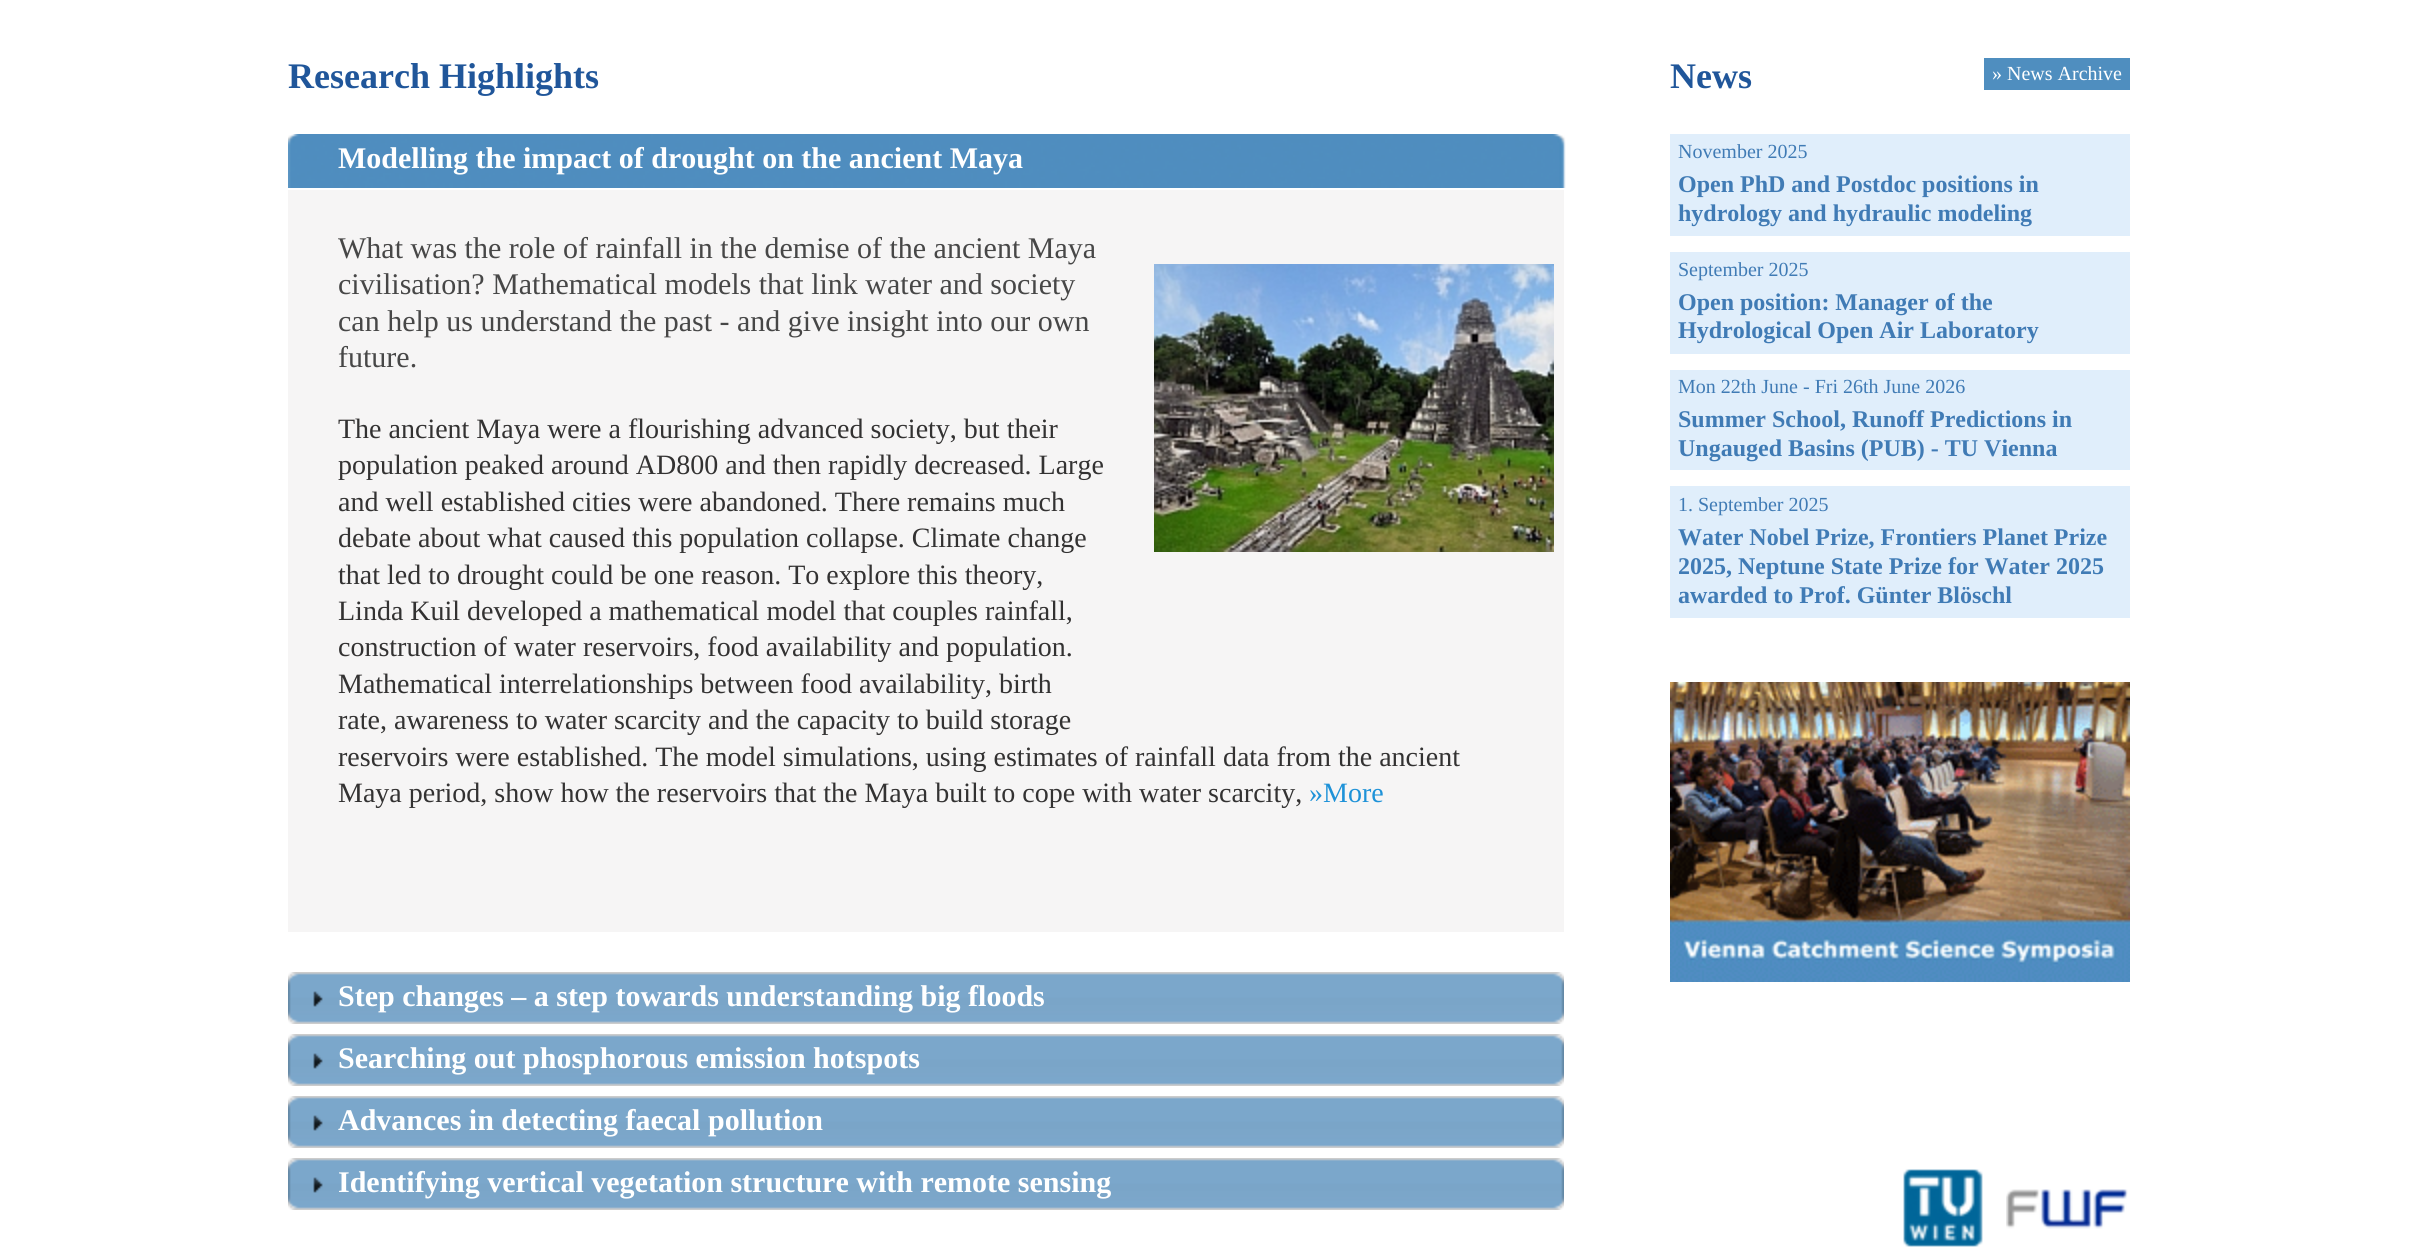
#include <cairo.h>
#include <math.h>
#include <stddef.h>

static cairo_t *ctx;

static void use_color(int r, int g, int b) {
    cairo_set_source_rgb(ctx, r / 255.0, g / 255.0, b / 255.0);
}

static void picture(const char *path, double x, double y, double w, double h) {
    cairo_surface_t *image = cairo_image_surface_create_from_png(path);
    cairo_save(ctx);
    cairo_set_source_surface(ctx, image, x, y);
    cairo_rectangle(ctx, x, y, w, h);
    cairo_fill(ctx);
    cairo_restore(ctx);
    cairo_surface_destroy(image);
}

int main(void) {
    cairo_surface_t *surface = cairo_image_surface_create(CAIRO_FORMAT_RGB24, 2436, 1252);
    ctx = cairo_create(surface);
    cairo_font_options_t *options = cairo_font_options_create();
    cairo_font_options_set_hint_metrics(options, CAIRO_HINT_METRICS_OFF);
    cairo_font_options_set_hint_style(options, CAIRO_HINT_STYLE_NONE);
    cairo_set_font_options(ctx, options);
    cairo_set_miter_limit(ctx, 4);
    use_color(255, 255, 255);
    cairo_paint(ctx);
    cairo_select_font_face(ctx, "Liberation Serif", CAIRO_FONT_SLANT_NORMAL, CAIRO_FONT_WEIGHT_BOLD);
    cairo_set_font_size(ctx, 36);
    use_color(32, 86, 154);
    cairo_move_to(ctx, 288, 88);
    cairo_show_text(ctx, "Research Highlights");
    picture("img1.png", 288, 134, 1278, 54);
    cairo_set_font_size(ctx, 30);
    use_color(255, 255, 255);
    cairo_move_to(ctx, 338, 168);
    cairo_show_text(ctx, "Modelling the impact of drought on the ancient Maya");
    use_color(246, 245, 245);
    cairo_rectangle(ctx, 288, 190, 1276, 742);
    cairo_fill(ctx);
    cairo_select_font_face(ctx, "Liberation Serif", CAIRO_FONT_SLANT_NORMAL, CAIRO_FONT_WEIGHT_NORMAL);
    use_color(71, 71, 71);
    cairo_move_to(ctx, 338, 258);
    cairo_show_text(ctx, "What was the role of rainfall in the demise of the ancient Maya");
    cairo_move_to(ctx, 338, 294);
    cairo_show_text(ctx, "civilisation? Mathematical models that link water and society");
    cairo_move_to(ctx, 338, 331);
    cairo_show_text(ctx, "can help us understand the past - and give insight into our own");
    cairo_move_to(ctx, 338, 367);
    cairo_show_text(ctx, "future.");
    picture("img2.png", 1154, 264, 400, 288);
    cairo_set_font_size(ctx, 28);
    use_color(51, 50, 50);
    cairo_move_to(ctx, 338, 438);
    cairo_show_text(ctx, "The ancient Maya were a flourishing advanced society, but their");
    cairo_move_to(ctx, 338, 474);
    cairo_show_text(ctx, "population peaked around AD800 and then rapidly decreased. Large");
    cairo_move_to(ctx, 338, 511);
    cairo_show_text(ctx, "and well established cities were abandoned. There remains much");
    cairo_move_to(ctx, 338, 547);
    cairo_show_text(ctx, "debate about what caused this population collapse. Climate change");
    cairo_move_to(ctx, 338, 584);
    cairo_show_text(ctx, "that led to drought could be one reason. To explore this theory,");
    cairo_move_to(ctx, 338, 620);
    cairo_show_text(ctx, "Linda Kuil developed a mathematical model that couples rainfall,");
    cairo_move_to(ctx, 338, 656);
    cairo_show_text(ctx, "construction of water reservoirs, food availability and population.");
    cairo_move_to(ctx, 338, 693);
    cairo_show_text(ctx, "Mathematical interrelationships between food availability, birth");
    cairo_move_to(ctx, 338, 729);
    cairo_show_text(ctx, "rate, awareness to water scarcity and the capacity to build storage");
    cairo_move_to(ctx, 338, 766);
    cairo_show_text(ctx, "reservoirs were established. The model simulations, using estimates of rainfall data from the ancient");
    cairo_move_to(ctx, 338, 802);
    cairo_show_text(ctx, "Maya period, show how the reservoirs that the Maya built to cope with water scarcity,");
    use_color(30, 146, 216);
    cairo_move_to(ctx, 1309, 802);
    cairo_show_text(ctx, "»More");
    picture("img3.png", 288, 972, 1276, 52);
    cairo_select_font_face(ctx, "Liberation Serif", CAIRO_FONT_SLANT_NORMAL, CAIRO_FONT_WEIGHT_BOLD);
    cairo_set_font_size(ctx, 30);
    use_color(255, 255, 255);
    cairo_move_to(ctx, 338, 1006);
    cairo_show_text(ctx, "Step changes – a step towards understanding big floods");
    picture("img3.png", 288, 1034, 1276, 52);
    cairo_move_to(ctx, 338, 1068);
    cairo_show_text(ctx, "Searching out phosphorous emission hotspots");
    picture("img3.png", 288, 1096, 1276, 52);
    cairo_move_to(ctx, 338, 1130);
    cairo_show_text(ctx, "Advances in detecting faecal pollution");
    picture("img3.png", 288, 1158, 1276, 52);
    cairo_move_to(ctx, 338, 1192);
    cairo_show_text(ctx, "Identifying vertical vegetation structure with remote sensing");
    cairo_set_font_size(ctx, 36);
    use_color(32, 86, 154);
    cairo_move_to(ctx, 1670, 88);
    cairo_show_text(ctx, "News");
    use_color(79, 142, 191);
    cairo_rectangle(ctx, 1984, 58, 146, 32);
    cairo_fill(ctx);
    cairo_select_font_face(ctx, "Liberation Serif", CAIRO_FONT_SLANT_NORMAL, CAIRO_FONT_WEIGHT_NORMAL);
    cairo_set_font_size(ctx, 20);
    use_color(255, 255, 255);
    cairo_move_to(ctx, 1992, 80);
    cairo_show_text(ctx, "» News Archive");
    use_color(224, 238, 251);
    cairo_rectangle(ctx, 1670, 134, 460, 102);
    cairo_fill(ctx);
    use_color(64, 123, 181);
    cairo_move_to(ctx, 1678, 158);
    cairo_show_text(ctx, "November 2025");
    cairo_select_font_face(ctx, "Liberation Serif", CAIRO_FONT_SLANT_NORMAL, CAIRO_FONT_WEIGHT_BOLD);
    cairo_set_font_size(ctx, 24);
    cairo_move_to(ctx, 1678, 192);
    cairo_show_text(ctx, "Open PhD and Postdoc positions in");
    cairo_move_to(ctx, 1678, 221);
    cairo_show_text(ctx, "hydrology and hydraulic modeling");
    use_color(224, 238, 251);
    cairo_rectangle(ctx, 1670, 252, 460, 102);
    cairo_fill(ctx);
    cairo_select_font_face(ctx, "Liberation Serif", CAIRO_FONT_SLANT_NORMAL, CAIRO_FONT_WEIGHT_NORMAL);
    cairo_set_font_size(ctx, 20);
    use_color(64, 123, 181);
    cairo_move_to(ctx, 1678, 276);
    cairo_show_text(ctx, "September 2025");
    cairo_select_font_face(ctx, "Liberation Serif", CAIRO_FONT_SLANT_NORMAL, CAIRO_FONT_WEIGHT_BOLD);
    cairo_set_font_size(ctx, 24);
    cairo_move_to(ctx, 1678, 310);
    cairo_show_text(ctx, "Open position: Manager of the");
    cairo_move_to(ctx, 1678, 338);
    cairo_show_text(ctx, "Hydrological Open Air Laboratory");
    use_color(224, 238, 251);
    cairo_rectangle(ctx, 1670, 370, 460, 100);
    cairo_fill(ctx);
    cairo_select_font_face(ctx, "Liberation Serif", CAIRO_FONT_SLANT_NORMAL, CAIRO_FONT_WEIGHT_NORMAL);
    cairo_set_font_size(ctx, 20);
    use_color(64, 123, 181);
    cairo_move_to(ctx, 1678, 393);
    cairo_show_text(ctx, "Mon 22th June - Fri 26th June 2026");
    cairo_select_font_face(ctx, "Liberation Serif", CAIRO_FONT_SLANT_NORMAL, CAIRO_FONT_WEIGHT_BOLD);
    cairo_set_font_size(ctx, 24);
    cairo_move_to(ctx, 1678, 427);
    cairo_show_text(ctx, "Summer School, Runoff Predictions in");
    cairo_move_to(ctx, 1678, 456);
    cairo_show_text(ctx, "Ungauged Basins (PUB) - TU Vienna");
    use_color(224, 238, 251);
    cairo_rectangle(ctx, 1670, 486, 460, 132);
    cairo_fill(ctx);
    cairo_select_font_face(ctx, "Liberation Serif", CAIRO_FONT_SLANT_NORMAL, CAIRO_FONT_WEIGHT_NORMAL);
    cairo_set_font_size(ctx, 20);
    use_color(64, 123, 181);
    cairo_move_to(ctx, 1678, 511);
    cairo_show_text(ctx, "1. September 2025");
    cairo_select_font_face(ctx, "Liberation Serif", CAIRO_FONT_SLANT_NORMAL, CAIRO_FONT_WEIGHT_BOLD);
    cairo_set_font_size(ctx, 24);
    cairo_move_to(ctx, 1678, 545);
    cairo_show_text(ctx, "Water Nobel Prize, Frontiers Planet Prize");
    cairo_move_to(ctx, 1678, 574);
    cairo_show_text(ctx, "2025, Neptune State Prize for Water 2025");
    cairo_move_to(ctx, 1678, 603);
    cairo_show_text(ctx, "awarded to Prof. Günter Blöschl");
    picture("img4.png", 1670, 682, 460, 300);
    picture("img5.png", 1903, 1169, 80, 78);
    picture("img6.png", 2006, 1189, 122, 40);
    cairo_surface_write_to_png(surface, "result.png");
    cairo_font_options_destroy(options);
    cairo_destroy(ctx);
    cairo_surface_destroy(surface);
    return 0;
}
